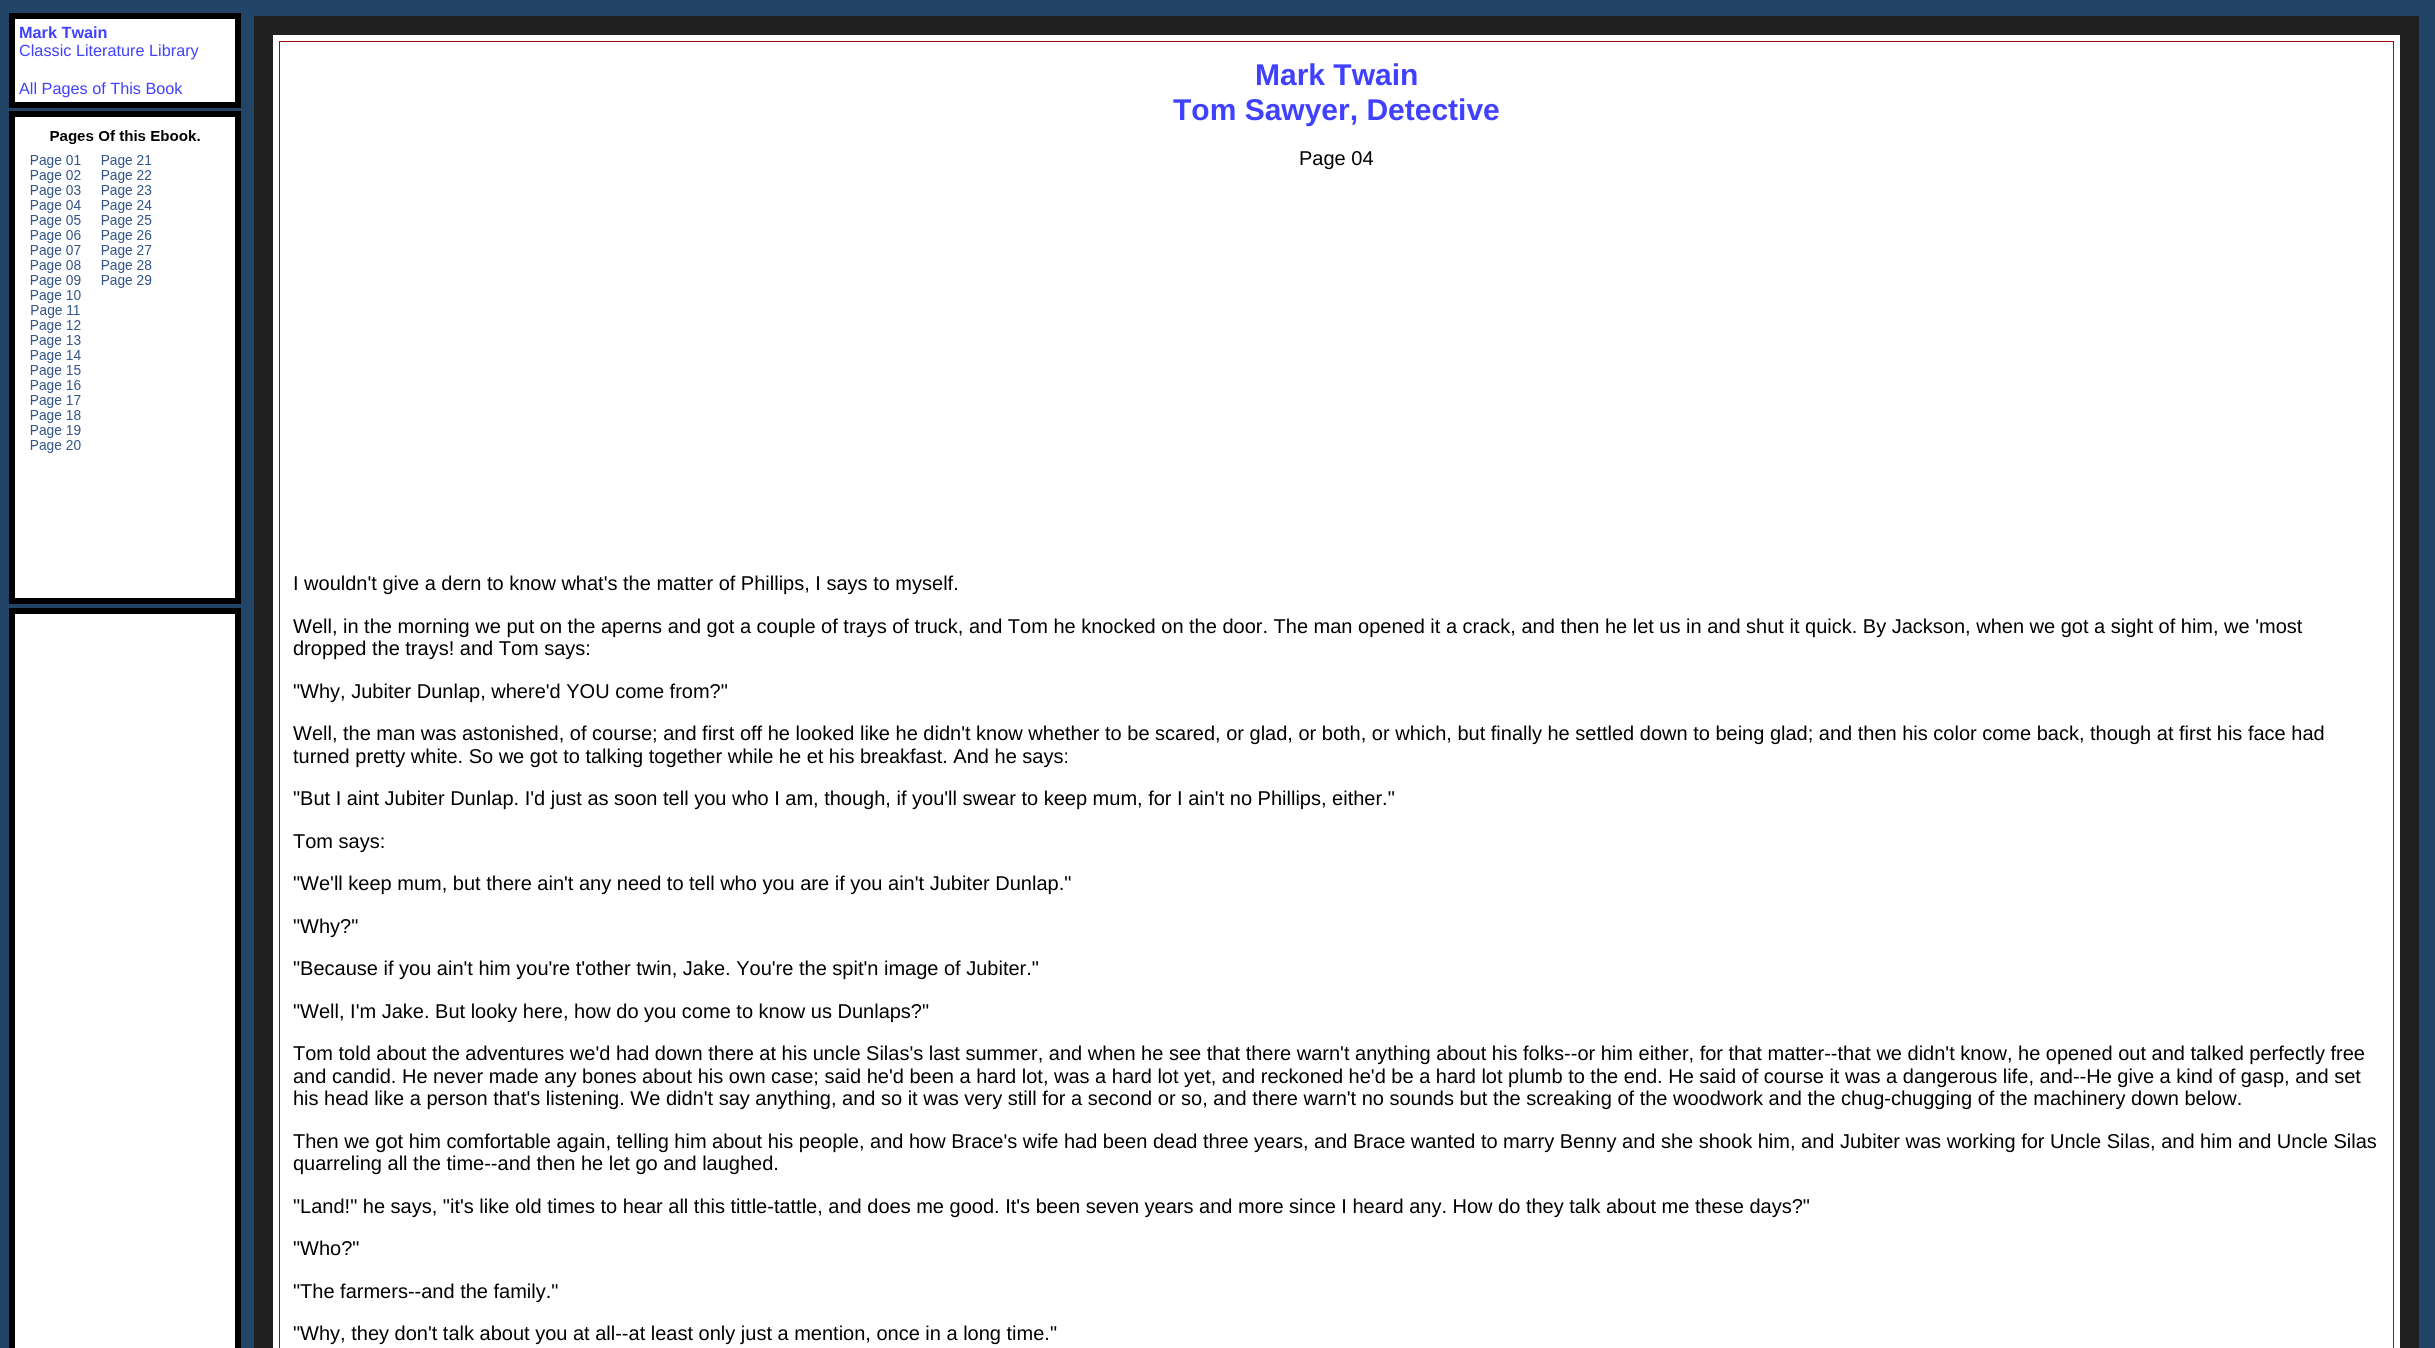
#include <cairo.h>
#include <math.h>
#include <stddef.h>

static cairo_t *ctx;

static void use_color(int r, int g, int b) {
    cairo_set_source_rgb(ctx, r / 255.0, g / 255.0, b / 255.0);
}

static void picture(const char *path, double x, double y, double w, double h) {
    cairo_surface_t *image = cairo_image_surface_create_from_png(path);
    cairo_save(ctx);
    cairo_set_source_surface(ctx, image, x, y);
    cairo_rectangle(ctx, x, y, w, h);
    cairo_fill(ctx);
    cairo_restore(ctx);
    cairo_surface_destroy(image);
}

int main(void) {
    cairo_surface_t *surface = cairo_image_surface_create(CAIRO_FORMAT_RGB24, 2435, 1348);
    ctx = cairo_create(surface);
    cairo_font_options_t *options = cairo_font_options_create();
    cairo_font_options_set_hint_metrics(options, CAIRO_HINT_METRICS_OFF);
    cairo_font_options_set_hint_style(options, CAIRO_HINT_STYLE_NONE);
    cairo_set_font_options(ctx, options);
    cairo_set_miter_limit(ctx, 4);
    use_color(34, 68, 102);
    cairo_paint(ctx);
    use_color(255, 255, 255);
    cairo_rectangle(ctx, 12, 16, 226, 89);
    cairo_fill_preserve(ctx);
    use_color(0, 0, 0);
    cairo_set_line_width(ctx, 6);
    cairo_stroke(ctx);
    cairo_select_font_face(ctx, "Liberation Sans", CAIRO_FONT_SLANT_NORMAL, CAIRO_FONT_WEIGHT_BOLD);
    cairo_set_font_size(ctx, 16.25);
    use_color(64, 64, 255);
    cairo_move_to(ctx, 19, 38);
    cairo_show_text(ctx, "Mark Twain");
    cairo_select_font_face(ctx, "Liberation Sans", CAIRO_FONT_SLANT_NORMAL, CAIRO_FONT_WEIGHT_NORMAL);
    cairo_move_to(ctx, 19, 56);
    cairo_show_text(ctx, "Classic Literature Library");
    cairo_move_to(ctx, 19, 94);
    cairo_show_text(ctx, "All Pages of This Book");
    use_color(255, 255, 255);
    cairo_rectangle(ctx, 12, 114, 226, 487);
    cairo_fill_preserve(ctx);
    use_color(0, 0, 0);
    cairo_stroke(ctx);
    picture("img1.png", 30, 130, 170, 323);
    use_color(255, 255, 255);
    cairo_rectangle(ctx, 12, 611, 226, 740);
    cairo_fill_preserve(ctx);
    use_color(0, 0, 0);
    cairo_stroke(ctx);
    use_color(255, 255, 255);
    cairo_rectangle(ctx, 263.5, 25.5, 2146, 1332);
    cairo_fill_preserve(ctx);
    use_color(32, 32, 32);
    cairo_set_line_width(ctx, 19);
    cairo_stroke(ctx);
    cairo_rectangle(ctx, 279.5, 41.5, 2114, 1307);
    use_color(157, 13, 13);
    cairo_set_line_width(ctx, 1);
    cairo_stroke(ctx);
    cairo_select_font_face(ctx, "Liberation Sans", CAIRO_FONT_SLANT_NORMAL, CAIRO_FONT_WEIGHT_BOLD);
    cairo_set_font_size(ctx, 30);
    use_color(64, 64, 255);
    cairo_move_to(ctx, 1255, 85);
    cairo_show_text(ctx, "Mark Twain");
    cairo_move_to(ctx, 1173, 120);
    cairo_show_text(ctx, "Tom Sawyer, Detective");
    cairo_select_font_face(ctx, "Liberation Sans", CAIRO_FONT_SLANT_NORMAL, CAIRO_FONT_WEIGHT_NORMAL);
    cairo_set_font_size(ctx, 20);
    use_color(0, 0, 0);
    cairo_move_to(ctx, 1299, 165);
    cairo_show_text(ctx, "Page 04");
    cairo_move_to(ctx, 293, 590);
    cairo_show_text(ctx, "I wouldn't give a dern to know what's the matter of Phillips, I says to myself.");
    cairo_move_to(ctx, 293, 633);
    cairo_show_text(ctx, "Well, in the morning we put on the aperns and got a couple of trays of truck, and Tom he knocked on the door. The man opened it a crack, and then he let us in and shut it quick. By Jackson, when we got a sight of him, we 'most");
    cairo_move_to(ctx, 293, 655);
    cairo_show_text(ctx, "dropped the trays! and Tom says:");
    cairo_move_to(ctx, 293, 698);
    cairo_show_text(ctx, "\"Why, Jubiter Dunlap, where'd YOU come from?\"");
    cairo_move_to(ctx, 293, 740);
    cairo_show_text(ctx, "Well, the man was astonished, of course; and first off he looked like he didn't know whether to be scared, or glad, or both, or which, but finally he settled down to being glad; and then his color come back, though at first his face had");
    cairo_move_to(ctx, 293, 763);
    cairo_show_text(ctx, "turned pretty white. So we got to talking together while he et his breakfast. And he says:");
    cairo_move_to(ctx, 293, 805);
    cairo_show_text(ctx, "\"But I aint Jubiter Dunlap. I'd just as soon tell you who I am, though, if you'll swear to keep mum, for I ain't no Phillips, either.\"");
    cairo_move_to(ctx, 293, 848);
    cairo_show_text(ctx, "Tom says:");
    cairo_move_to(ctx, 293, 890);
    cairo_show_text(ctx, "\"We'll keep mum, but there ain't any need to tell who you are if you ain't Jubiter Dunlap.\"");
    cairo_move_to(ctx, 293, 933);
    cairo_show_text(ctx, "\"Why?\"");
    cairo_move_to(ctx, 293, 975);
    cairo_show_text(ctx, "\"Because if you ain't him you're t'other twin, Jake. You're the spit'n image of Jubiter.\"");
    cairo_move_to(ctx, 293, 1018);
    cairo_show_text(ctx, "\"Well, I'm Jake. But looky here, how do you come to know us Dunlaps?\"");
    cairo_move_to(ctx, 293, 1060);
    cairo_show_text(ctx, "Tom told about the adventures we'd had down there at his uncle Silas's last summer, and when he see that there warn't anything about his folks--or him either, for that matter--that we didn't know, he opened out and talked perfectly free");
    cairo_move_to(ctx, 293, 1083);
    cairo_show_text(ctx, "and candid. He never made any bones about his own case; said he'd been a hard lot, was a hard lot yet, and reckoned he'd be a hard lot plumb to the end. He said of course it was a dangerous life, and--He give a kind of gasp, and set");
    cairo_move_to(ctx, 293, 1105);
    cairo_show_text(ctx, "his head like a person that's listening. We didn't say anything, and so it was very still for a second or so, and there warn't no sounds but the screaking of the woodwork and the chug-chugging of the machinery down below.");
    cairo_move_to(ctx, 293, 1148);
    cairo_show_text(ctx, "Then we got him comfortable again, telling him about his people, and how Brace's wife had been dead three years, and Brace wanted to marry Benny and she shook him, and Jubiter was working for Uncle Silas, and him and Uncle Silas");
    cairo_move_to(ctx, 293, 1170);
    cairo_show_text(ctx, "quarreling all the time--and then he let go and laughed.");
    cairo_move_to(ctx, 293, 1213);
    cairo_show_text(ctx, "\"Land!\" he says, \"it's like old times to hear all this tittle-tattle, and does me good. It's been seven years and more since I heard any. How do they talk about me these days?\"");
    cairo_move_to(ctx, 293, 1255);
    cairo_show_text(ctx, "\"Who?\"");
    cairo_move_to(ctx, 293, 1298);
    cairo_show_text(ctx, "\"The farmers--and the family.\"");
    cairo_move_to(ctx, 293, 1340);
    cairo_show_text(ctx, "\"Why, they don't talk about you at all--at least only just a mention, once in a long time.\"");
    cairo_surface_write_to_png(surface, "result.png");
    cairo_font_options_destroy(options);
    cairo_destroy(ctx);
    cairo_surface_destroy(surface);
    return 0;
}
